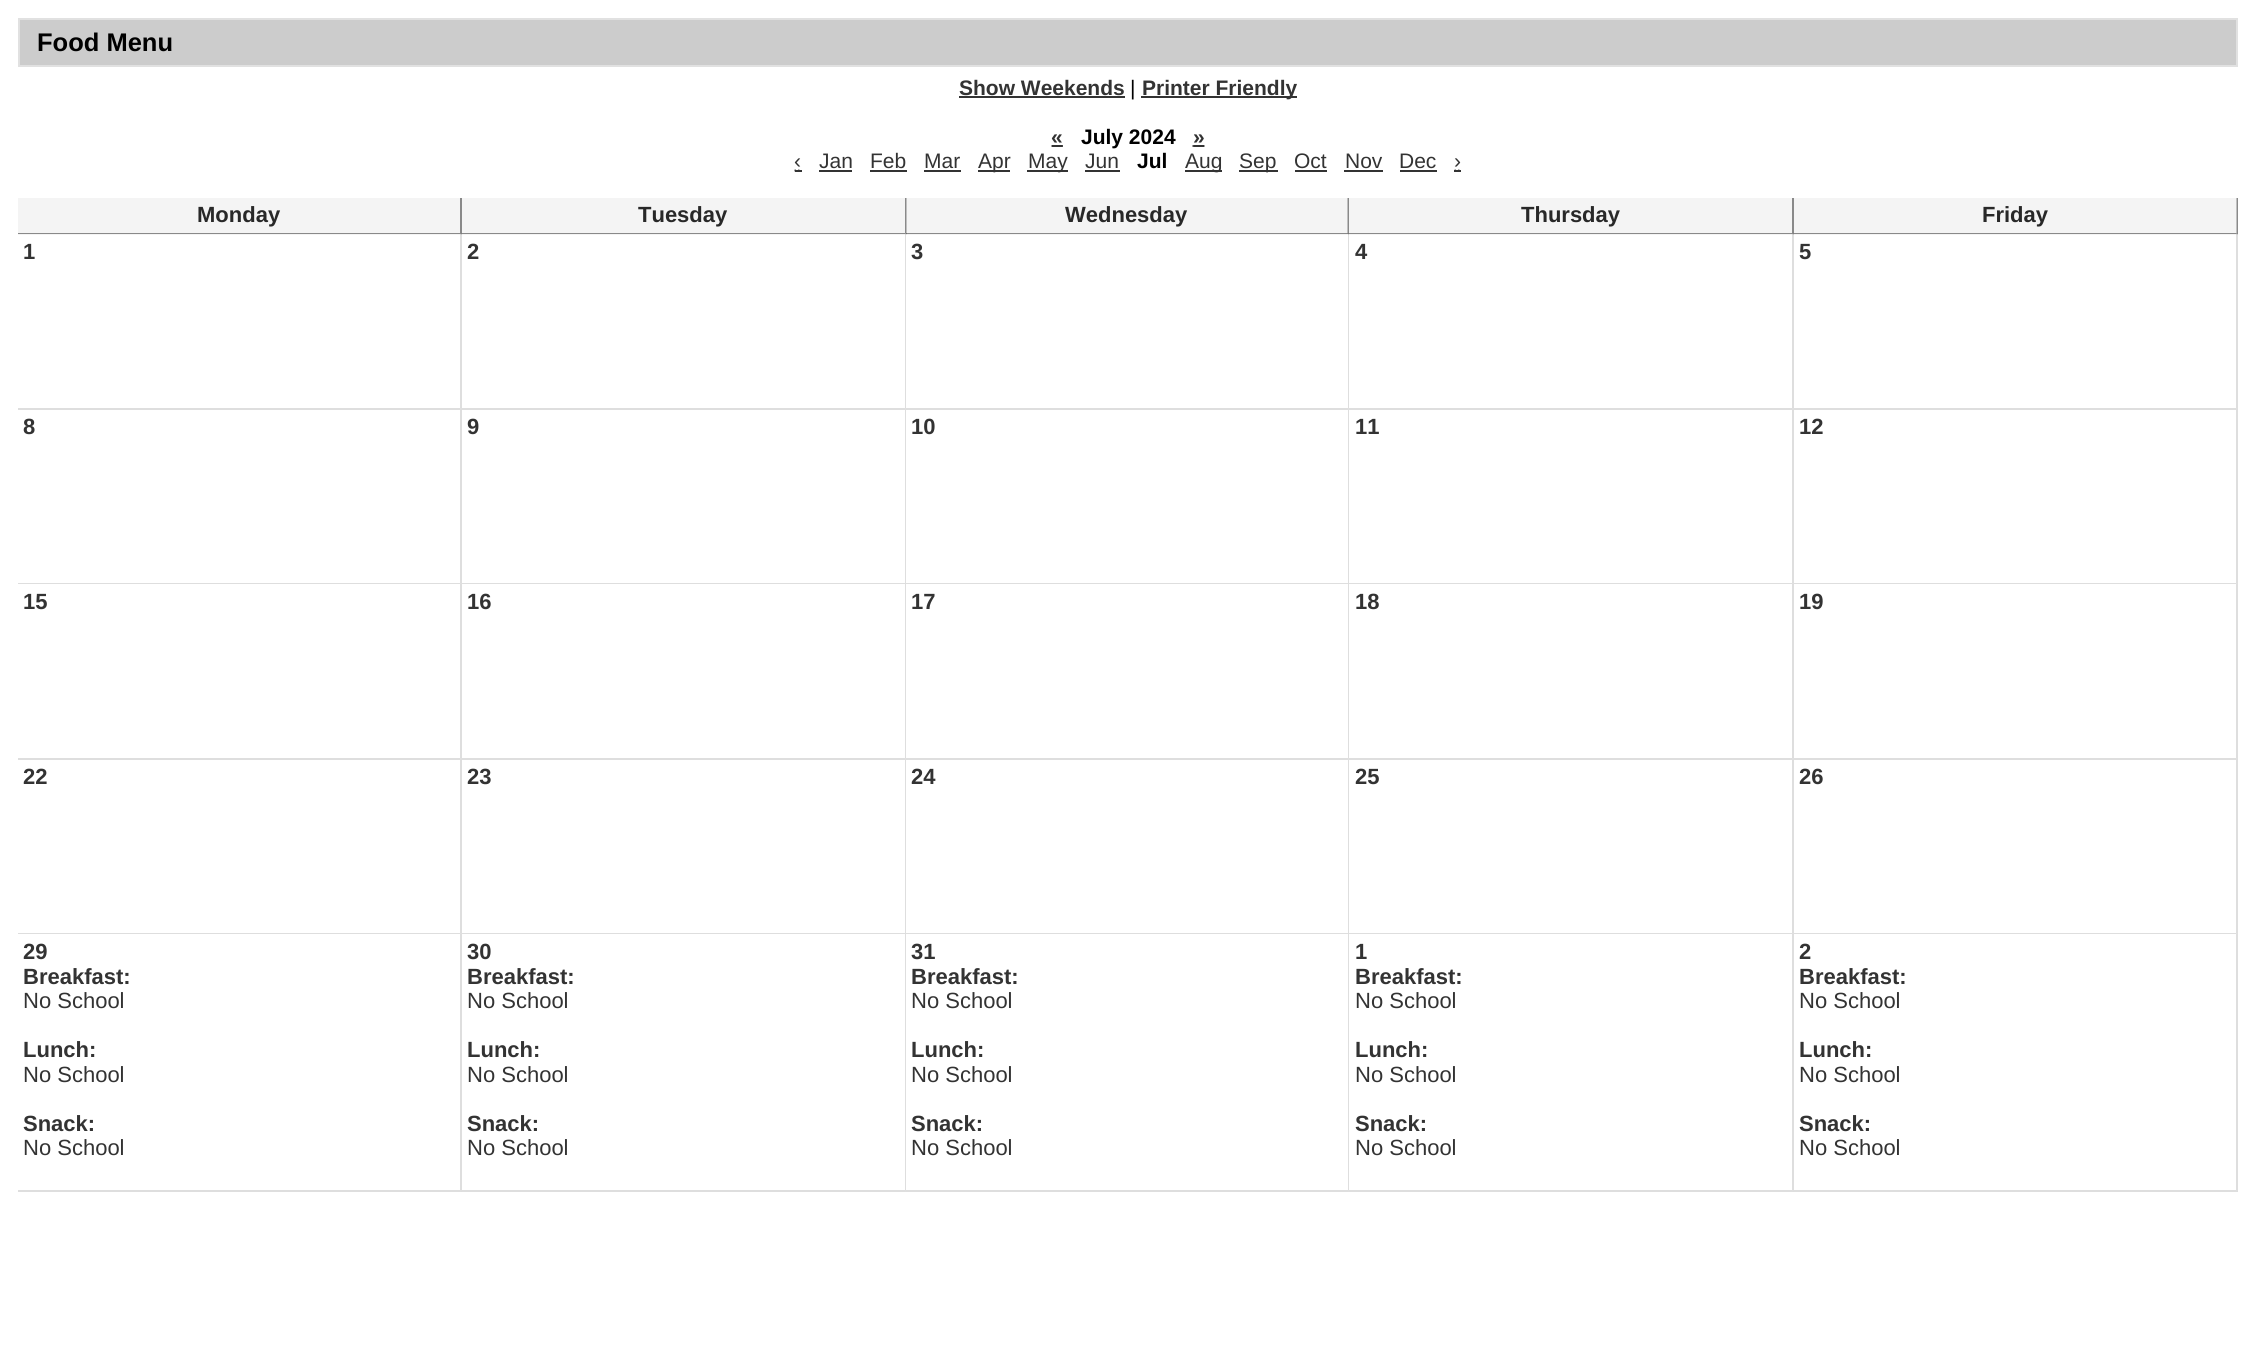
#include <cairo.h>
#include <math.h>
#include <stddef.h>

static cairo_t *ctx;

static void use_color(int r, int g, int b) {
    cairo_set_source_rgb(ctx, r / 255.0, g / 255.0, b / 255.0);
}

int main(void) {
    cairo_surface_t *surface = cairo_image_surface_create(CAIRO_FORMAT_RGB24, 2255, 1357);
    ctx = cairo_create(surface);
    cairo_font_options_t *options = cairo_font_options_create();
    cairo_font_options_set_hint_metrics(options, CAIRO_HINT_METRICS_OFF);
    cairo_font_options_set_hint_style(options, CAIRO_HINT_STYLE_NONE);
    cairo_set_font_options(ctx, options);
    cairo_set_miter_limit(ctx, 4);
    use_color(255, 255, 255);
    cairo_paint(ctx);
    use_color(204, 204, 204);
    cairo_rectangle(ctx, 19, 19, 2218, 47);
    cairo_fill_preserve(ctx);
    use_color(225, 225, 225);
    cairo_stroke(ctx);
    cairo_select_font_face(ctx, "Liberation Sans", CAIRO_FONT_SLANT_NORMAL, CAIRO_FONT_WEIGHT_BOLD);
    cairo_set_font_size(ctx, 25.5);
    use_color(0, 0, 0);
    cairo_move_to(ctx, 37, 51);
    cairo_show_text(ctx, "Food Menu");
    cairo_set_font_size(ctx, 21);
    use_color(51, 51, 51);
    cairo_move_to(ctx, 959, 95);
    cairo_show_text(ctx, "Show Weekends");
    cairo_rectangle(ctx, 959, 96, 166, 2);
    cairo_fill(ctx);
    cairo_select_font_face(ctx, "Liberation Sans", CAIRO_FONT_SLANT_NORMAL, CAIRO_FONT_WEIGHT_NORMAL);
    use_color(0, 0, 0);
    cairo_move_to(ctx, 1130, 95);
    cairo_show_text(ctx, "|");
    use_color(51, 51, 51);
    cairo_rectangle(ctx, 1141, 96, 156, 2);
    cairo_fill(ctx);
    cairo_select_font_face(ctx, "Liberation Sans", CAIRO_FONT_SLANT_NORMAL, CAIRO_FONT_WEIGHT_BOLD);
    cairo_move_to(ctx, 1142, 95);
    cairo_show_text(ctx, "Printer Friendly");
    cairo_move_to(ctx, 1051, 144);
    cairo_show_text(ctx, "«");
    cairo_new_path(ctx);
    cairo_move_to(ctx, 1051.5, 146);
    cairo_line_to(ctx, 1053, 146);
    cairo_move_to(ctx, 1055, 146);
    cairo_line_to(ctx, 1056.5, 146);
    cairo_move_to(ctx, 1058.5, 146);
    cairo_line_to(ctx, 1060, 146);
    cairo_move_to(ctx, 1062, 146);
    cairo_line_to(ctx, 1063, 146);
    cairo_set_line_width(ctx, 1.8);
    cairo_stroke(ctx);
    cairo_rectangle(ctx, 1052, 145, 10, 2);
    cairo_fill(ctx);
    use_color(0, 0, 0);
    cairo_move_to(ctx, 1081, 144);
    cairo_show_text(ctx, "July 2024");
    use_color(51, 51, 51);
    cairo_move_to(ctx, 1193, 144);
    cairo_show_text(ctx, "»");
    cairo_new_path(ctx);
    cairo_move_to(ctx, 1192.5, 146);
    cairo_line_to(ctx, 1194.5, 146);
    cairo_move_to(ctx, 1196, 146);
    cairo_line_to(ctx, 1198, 146);
    cairo_move_to(ctx, 1199.5, 146);
    cairo_line_to(ctx, 1201.5, 146);
    cairo_move_to(ctx, 1203, 146);
    cairo_line_to(ctx, 1204.5, 146);
    cairo_stroke(ctx);
    cairo_rectangle(ctx, 1194, 145, 10, 2);
    cairo_fill(ctx);
    cairo_select_font_face(ctx, "Liberation Sans", CAIRO_FONT_SLANT_NORMAL, CAIRO_FONT_WEIGHT_NORMAL);
    cairo_move_to(ctx, 794, 168);
    cairo_show_text(ctx, "‹");
    cairo_new_path(ctx);
    cairo_move_to(ctx, 794.5, 170.5);
    cairo_line_to(ctx, 796, 170.5);
    cairo_move_to(ctx, 798, 170.5);
    cairo_line_to(ctx, 799.5, 170.5);
    cairo_stroke(ctx);
    cairo_rectangle(ctx, 795, 170, 7, 2);
    cairo_fill(ctx);
    cairo_move_to(ctx, 819, 168);
    cairo_show_text(ctx, "Jan");
    cairo_rectangle(ctx, 819, 170, 33, 2);
    cairo_fill(ctx);
    cairo_move_to(ctx, 870, 168);
    cairo_show_text(ctx, "Feb");
    cairo_rectangle(ctx, 870, 170, 37, 2);
    cairo_fill(ctx);
    cairo_move_to(ctx, 924, 168);
    cairo_show_text(ctx, "Mar");
    cairo_rectangle(ctx, 924, 170, 37, 2);
    cairo_fill(ctx);
    cairo_rectangle(ctx, 978, 170, 32, 2);
    cairo_fill(ctx);
    cairo_move_to(ctx, 978, 168);
    cairo_show_text(ctx, "Apr");
    cairo_rectangle(ctx, 1027, 170, 41, 2);
    cairo_fill(ctx);
    cairo_move_to(ctx, 1028, 168);
    cairo_show_text(ctx, "May");
    cairo_move_to(ctx, 1085, 168);
    cairo_show_text(ctx, "Jun");
    cairo_rectangle(ctx, 1085, 170, 35, 2);
    cairo_fill(ctx);
    cairo_select_font_face(ctx, "Liberation Sans", CAIRO_FONT_SLANT_NORMAL, CAIRO_FONT_WEIGHT_BOLD);
    use_color(0, 0, 0);
    cairo_move_to(ctx, 1137, 168);
    cairo_show_text(ctx, "Jul");
    use_color(51, 51, 51);
    cairo_rectangle(ctx, 1185, 170, 37, 2);
    cairo_fill(ctx);
    cairo_select_font_face(ctx, "Liberation Sans", CAIRO_FONT_SLANT_NORMAL, CAIRO_FONT_WEIGHT_NORMAL);
    cairo_move_to(ctx, 1185, 168);
    cairo_show_text(ctx, "Aug");
    cairo_rectangle(ctx, 1239, 170, 39, 2);
    cairo_fill(ctx);
    cairo_move_to(ctx, 1239, 168);
    cairo_show_text(ctx, "Sep");
    cairo_move_to(ctx, 1294, 168);
    cairo_show_text(ctx, "Oct");
    cairo_rectangle(ctx, 1295, 170, 32, 2);
    cairo_fill(ctx);
    cairo_move_to(ctx, 1345, 168);
    cairo_show_text(ctx, "Nov");
    cairo_rectangle(ctx, 1344, 170, 39, 2);
    cairo_fill(ctx);
    cairo_move_to(ctx, 1399, 168);
    cairo_show_text(ctx, "Dec");
    cairo_rectangle(ctx, 1400, 170, 37, 2);
    cairo_fill(ctx);
    cairo_move_to(ctx, 1454, 168);
    cairo_show_text(ctx, "›");
    cairo_new_path(ctx);
    cairo_move_to(ctx, 1454.5, 170.5);
    cairo_line_to(ctx, 1456, 170.5);
    cairo_move_to(ctx, 1458, 170.5);
    cairo_line_to(ctx, 1459.5, 170.5);
    cairo_stroke(ctx);
    cairo_rectangle(ctx, 1454, 170, 7, 2);
    cairo_fill(ctx);
    use_color(244, 244, 244);
    cairo_rectangle(ctx, 18, 198, 2220, 37);
    cairo_fill(ctx);
    use_color(137, 137, 137);
    cairo_new_path(ctx);
    cairo_move_to(ctx, 462, 198);
    cairo_line_to(ctx, 462, 234.5);
    cairo_line_to(ctx, 460, 233);
    cairo_line_to(ctx, 460, 198);
    cairo_close_path(ctx);
    cairo_fill(ctx);
    cairo_set_source_rgba(ctx, 0, 0, 0, 0.44);
    cairo_new_path(ctx);
    cairo_move_to(ctx, 462, 234);
    cairo_line_to(ctx, 18, 234);
    cairo_line_to(ctx, 18, 233);
    cairo_line_to(ctx, 460, 233);
    cairo_close_path(ctx);
    cairo_fill(ctx);
    cairo_select_font_face(ctx, "Liberation Sans", CAIRO_FONT_SLANT_NORMAL, CAIRO_FONT_WEIGHT_BOLD);
    cairo_set_font_size(ctx, 22);
    use_color(40, 40, 40);
    cairo_move_to(ctx, 197, 222);
    cairo_show_text(ctx, "Monday");
    use_color(137, 137, 137);
    cairo_new_path(ctx);
    cairo_move_to(ctx, 906.5, 198);
    cairo_line_to(ctx, 906.5, 234.5);
    cairo_line_to(ctx, 905, 233);
    cairo_line_to(ctx, 905, 198);
    cairo_close_path(ctx);
    cairo_fill(ctx);
    cairo_set_source_rgba(ctx, 0, 0, 0, 0.44);
    cairo_new_path(ctx);
    cairo_move_to(ctx, 906, 234);
    cairo_line_to(ctx, 462, 234);
    cairo_line_to(ctx, 462, 233);
    cairo_line_to(ctx, 905, 233);
    cairo_close_path(ctx);
    cairo_fill(ctx);
    use_color(40, 40, 40);
    cairo_move_to(ctx, 638, 222);
    cairo_show_text(ctx, "Tuesday");
    use_color(137, 137, 137);
    cairo_new_path(ctx);
    cairo_move_to(ctx, 1349, 198);
    cairo_line_to(ctx, 1349, 234.5);
    cairo_line_to(ctx, 1347.5, 233);
    cairo_line_to(ctx, 1347.5, 198);
    cairo_close_path(ctx);
    cairo_fill(ctx);
    cairo_set_source_rgba(ctx, 0, 0, 0, 0.44);
    cairo_new_path(ctx);
    cairo_move_to(ctx, 1349, 234);
    cairo_line_to(ctx, 906, 234);
    cairo_line_to(ctx, 906, 233);
    cairo_line_to(ctx, 1348, 233);
    cairo_close_path(ctx);
    cairo_fill(ctx);
    use_color(40, 40, 40);
    cairo_move_to(ctx, 1065, 222);
    cairo_show_text(ctx, "Wednesday");
    use_color(137, 137, 137);
    cairo_new_path(ctx);
    cairo_move_to(ctx, 1794, 198);
    cairo_line_to(ctx, 1794, 234.5);
    cairo_line_to(ctx, 1792, 233);
    cairo_line_to(ctx, 1792, 198);
    cairo_close_path(ctx);
    cairo_fill(ctx);
    cairo_set_source_rgba(ctx, 0, 0, 0, 0.44);
    cairo_new_path(ctx);
    cairo_move_to(ctx, 1794, 234);
    cairo_line_to(ctx, 1349, 234);
    cairo_line_to(ctx, 1349, 233);
    cairo_line_to(ctx, 1792, 233);
    cairo_close_path(ctx);
    cairo_fill(ctx);
    use_color(40, 40, 40);
    cairo_move_to(ctx, 1521, 222);
    cairo_show_text(ctx, "Thursday");
    use_color(137, 137, 137);
    cairo_new_path(ctx);
    cairo_move_to(ctx, 2238, 198);
    cairo_line_to(ctx, 2238, 234.5);
    cairo_line_to(ctx, 2236.5, 233);
    cairo_line_to(ctx, 2236.5, 198);
    cairo_close_path(ctx);
    cairo_fill(ctx);
    cairo_set_source_rgba(ctx, 0, 0, 0, 0.44);
    cairo_new_path(ctx);
    cairo_move_to(ctx, 2238, 234);
    cairo_line_to(ctx, 1794, 234);
    cairo_line_to(ctx, 1794, 233);
    cairo_line_to(ctx, 2236, 233);
    cairo_close_path(ctx);
    cairo_fill(ctx);
    use_color(40, 40, 40);
    cairo_move_to(ctx, 1982, 222);
    cairo_show_text(ctx, "Friday");
    cairo_set_source_rgba(ctx, 0, 0, 0, 0.13);
    cairo_new_path(ctx);
    cairo_move_to(ctx, 462, 234);
    cairo_line_to(ctx, 462, 410);
    cairo_line_to(ctx, 460, 408);
    cairo_line_to(ctx, 460, 234);
    cairo_close_path(ctx);
    cairo_fill(ctx);
    cairo_new_path(ctx);
    cairo_move_to(ctx, 462, 410);
    cairo_line_to(ctx, 18, 410);
    cairo_line_to(ctx, 18, 408);
    cairo_line_to(ctx, 460, 408);
    cairo_close_path(ctx);
    cairo_fill(ctx);
    use_color(51, 51, 51);
    cairo_move_to(ctx, 23, 259);
    cairo_show_text(ctx, "1");
    cairo_set_source_rgba(ctx, 0, 0, 0, 0.13);
    cairo_new_path(ctx);
    cairo_move_to(ctx, 906, 234);
    cairo_line_to(ctx, 906, 410);
    cairo_line_to(ctx, 905, 408);
    cairo_line_to(ctx, 905, 234);
    cairo_close_path(ctx);
    cairo_fill(ctx);
    cairo_new_path(ctx);
    cairo_move_to(ctx, 906, 410);
    cairo_line_to(ctx, 462, 410);
    cairo_line_to(ctx, 462, 408);
    cairo_line_to(ctx, 905, 408);
    cairo_close_path(ctx);
    cairo_fill(ctx);
    use_color(51, 51, 51);
    cairo_move_to(ctx, 467, 259);
    cairo_show_text(ctx, "2");
    cairo_set_source_rgba(ctx, 0, 0, 0, 0.13);
    cairo_new_path(ctx);
    cairo_move_to(ctx, 1349, 234);
    cairo_line_to(ctx, 1349, 410);
    cairo_line_to(ctx, 1348, 408);
    cairo_line_to(ctx, 1348, 234);
    cairo_close_path(ctx);
    cairo_fill(ctx);
    cairo_new_path(ctx);
    cairo_move_to(ctx, 1349, 410);
    cairo_line_to(ctx, 906, 410);
    cairo_line_to(ctx, 906, 408);
    cairo_line_to(ctx, 1348, 408);
    cairo_close_path(ctx);
    cairo_fill(ctx);
    use_color(51, 51, 51);
    cairo_move_to(ctx, 911, 259);
    cairo_show_text(ctx, "3");
    cairo_set_source_rgba(ctx, 0, 0, 0, 0.13);
    cairo_new_path(ctx);
    cairo_move_to(ctx, 1794, 234);
    cairo_line_to(ctx, 1794, 410);
    cairo_line_to(ctx, 1792, 408);
    cairo_line_to(ctx, 1792, 234);
    cairo_close_path(ctx);
    cairo_fill(ctx);
    cairo_new_path(ctx);
    cairo_move_to(ctx, 1794, 410);
    cairo_line_to(ctx, 1349, 410);
    cairo_line_to(ctx, 1349, 408);
    cairo_line_to(ctx, 1792, 408);
    cairo_close_path(ctx);
    cairo_fill(ctx);
    use_color(51, 51, 51);
    cairo_move_to(ctx, 1355, 259);
    cairo_show_text(ctx, "4");
    cairo_set_source_rgba(ctx, 0, 0, 0, 0.13);
    cairo_new_path(ctx);
    cairo_move_to(ctx, 2238, 234);
    cairo_line_to(ctx, 2238, 410);
    cairo_line_to(ctx, 2236, 408);
    cairo_line_to(ctx, 2236, 234);
    cairo_close_path(ctx);
    cairo_fill(ctx);
    cairo_new_path(ctx);
    cairo_move_to(ctx, 2238, 410);
    cairo_line_to(ctx, 1794, 410);
    cairo_line_to(ctx, 1794, 408);
    cairo_line_to(ctx, 2236, 408);
    cairo_close_path(ctx);
    cairo_fill(ctx);
    use_color(51, 51, 51);
    cairo_move_to(ctx, 1799, 259);
    cairo_show_text(ctx, "5");
    use_color(222, 222, 222);
    cairo_new_path(ctx);
    cairo_move_to(ctx, 462, 410);
    cairo_line_to(ctx, 462, 584);
    cairo_line_to(ctx, 460, 583);
    cairo_line_to(ctx, 460, 410);
    cairo_close_path(ctx);
    cairo_fill(ctx);
    cairo_set_source_rgba(ctx, 0, 0, 0, 0.13);
    cairo_new_path(ctx);
    cairo_move_to(ctx, 462, 584);
    cairo_line_to(ctx, 18, 584);
    cairo_line_to(ctx, 18, 583);
    cairo_line_to(ctx, 460, 583);
    cairo_close_path(ctx);
    cairo_fill(ctx);
    use_color(51, 51, 51);
    cairo_move_to(ctx, 23, 434);
    cairo_show_text(ctx, "8");
    use_color(222, 222, 222);
    cairo_new_path(ctx);
    cairo_move_to(ctx, 906, 410);
    cairo_line_to(ctx, 906, 584);
    cairo_line_to(ctx, 905, 583);
    cairo_line_to(ctx, 905, 410);
    cairo_close_path(ctx);
    cairo_fill(ctx);
    cairo_set_source_rgba(ctx, 0, 0, 0, 0.13);
    cairo_new_path(ctx);
    cairo_move_to(ctx, 906, 584);
    cairo_line_to(ctx, 462, 584);
    cairo_line_to(ctx, 462, 583);
    cairo_line_to(ctx, 905, 583);
    cairo_close_path(ctx);
    cairo_fill(ctx);
    use_color(51, 51, 51);
    cairo_move_to(ctx, 467, 434);
    cairo_show_text(ctx, "9");
    use_color(222, 222, 222);
    cairo_new_path(ctx);
    cairo_move_to(ctx, 1349, 410);
    cairo_line_to(ctx, 1349, 584);
    cairo_line_to(ctx, 1348, 583);
    cairo_line_to(ctx, 1348, 410);
    cairo_close_path(ctx);
    cairo_fill(ctx);
    cairo_set_source_rgba(ctx, 0, 0, 0, 0.13);
    cairo_new_path(ctx);
    cairo_move_to(ctx, 1349, 584);
    cairo_line_to(ctx, 906, 584);
    cairo_line_to(ctx, 906, 583);
    cairo_line_to(ctx, 1348, 583);
    cairo_close_path(ctx);
    cairo_fill(ctx);
    use_color(51, 51, 51);
    cairo_move_to(ctx, 911, 434);
    cairo_show_text(ctx, "10");
    use_color(222, 222, 222);
    cairo_new_path(ctx);
    cairo_move_to(ctx, 1794, 410);
    cairo_line_to(ctx, 1794, 584);
    cairo_line_to(ctx, 1792, 583);
    cairo_line_to(ctx, 1792, 410);
    cairo_close_path(ctx);
    cairo_fill(ctx);
    cairo_set_source_rgba(ctx, 0, 0, 0, 0.13);
    cairo_new_path(ctx);
    cairo_move_to(ctx, 1794, 584);
    cairo_line_to(ctx, 1349, 584);
    cairo_line_to(ctx, 1349, 583);
    cairo_line_to(ctx, 1792, 583);
    cairo_close_path(ctx);
    cairo_fill(ctx);
    use_color(51, 51, 51);
    cairo_move_to(ctx, 1355, 434);
    cairo_show_text(ctx, "11");
    use_color(222, 222, 222);
    cairo_new_path(ctx);
    cairo_move_to(ctx, 2238, 410);
    cairo_line_to(ctx, 2238, 584);
    cairo_line_to(ctx, 2236, 583);
    cairo_line_to(ctx, 2236, 410);
    cairo_close_path(ctx);
    cairo_fill(ctx);
    cairo_set_source_rgba(ctx, 0, 0, 0, 0.13);
    cairo_new_path(ctx);
    cairo_move_to(ctx, 2238, 584);
    cairo_line_to(ctx, 1794, 584);
    cairo_line_to(ctx, 1794, 583);
    cairo_line_to(ctx, 2236, 583);
    cairo_close_path(ctx);
    cairo_fill(ctx);
    use_color(51, 51, 51);
    cairo_move_to(ctx, 1799, 434);
    cairo_show_text(ctx, "12");
    use_color(222, 222, 222);
    cairo_new_path(ctx);
    cairo_move_to(ctx, 462, 584);
    cairo_line_to(ctx, 462, 760);
    cairo_line_to(ctx, 460, 758);
    cairo_line_to(ctx, 460, 584);
    cairo_close_path(ctx);
    cairo_fill(ctx);
    cairo_set_source_rgba(ctx, 0, 0, 0, 0.13);
    cairo_new_path(ctx);
    cairo_move_to(ctx, 462, 760);
    cairo_line_to(ctx, 18, 760);
    cairo_line_to(ctx, 18, 758);
    cairo_line_to(ctx, 460, 758);
    cairo_close_path(ctx);
    cairo_fill(ctx);
    use_color(51, 51, 51);
    cairo_move_to(ctx, 23, 609);
    cairo_show_text(ctx, "15");
    use_color(222, 222, 222);
    cairo_new_path(ctx);
    cairo_move_to(ctx, 906, 584);
    cairo_line_to(ctx, 906, 760);
    cairo_line_to(ctx, 905, 758);
    cairo_line_to(ctx, 905, 584);
    cairo_close_path(ctx);
    cairo_fill(ctx);
    cairo_set_source_rgba(ctx, 0, 0, 0, 0.13);
    cairo_new_path(ctx);
    cairo_move_to(ctx, 906, 760);
    cairo_line_to(ctx, 462, 760);
    cairo_line_to(ctx, 462, 758);
    cairo_line_to(ctx, 905, 758);
    cairo_close_path(ctx);
    cairo_fill(ctx);
    use_color(51, 51, 51);
    cairo_move_to(ctx, 467, 609);
    cairo_show_text(ctx, "16");
    use_color(222, 222, 222);
    cairo_new_path(ctx);
    cairo_move_to(ctx, 1349, 584);
    cairo_line_to(ctx, 1349, 760);
    cairo_line_to(ctx, 1348, 758);
    cairo_line_to(ctx, 1348, 584);
    cairo_close_path(ctx);
    cairo_fill(ctx);
    cairo_set_source_rgba(ctx, 0, 0, 0, 0.13);
    cairo_new_path(ctx);
    cairo_move_to(ctx, 1349, 760);
    cairo_line_to(ctx, 906, 760);
    cairo_line_to(ctx, 906, 758);
    cairo_line_to(ctx, 1348, 758);
    cairo_close_path(ctx);
    cairo_fill(ctx);
    use_color(51, 51, 51);
    cairo_move_to(ctx, 911, 609);
    cairo_show_text(ctx, "17");
    use_color(222, 222, 222);
    cairo_new_path(ctx);
    cairo_move_to(ctx, 1794, 584);
    cairo_line_to(ctx, 1794, 760);
    cairo_line_to(ctx, 1792, 758);
    cairo_line_to(ctx, 1792, 584);
    cairo_close_path(ctx);
    cairo_fill(ctx);
    cairo_set_source_rgba(ctx, 0, 0, 0, 0.13);
    cairo_new_path(ctx);
    cairo_move_to(ctx, 1794, 760);
    cairo_line_to(ctx, 1349, 760);
    cairo_line_to(ctx, 1349, 758);
    cairo_line_to(ctx, 1792, 758);
    cairo_close_path(ctx);
    cairo_fill(ctx);
    use_color(51, 51, 51);
    cairo_move_to(ctx, 1355, 609);
    cairo_show_text(ctx, "18");
    use_color(222, 222, 222);
    cairo_new_path(ctx);
    cairo_move_to(ctx, 2238, 584);
    cairo_line_to(ctx, 2238, 760);
    cairo_line_to(ctx, 2236, 758);
    cairo_line_to(ctx, 2236, 584);
    cairo_close_path(ctx);
    cairo_fill(ctx);
    cairo_set_source_rgba(ctx, 0, 0, 0, 0.13);
    cairo_new_path(ctx);
    cairo_move_to(ctx, 2238, 760);
    cairo_line_to(ctx, 1794, 760);
    cairo_line_to(ctx, 1794, 758);
    cairo_line_to(ctx, 2236, 758);
    cairo_close_path(ctx);
    cairo_fill(ctx);
    use_color(51, 51, 51);
    cairo_move_to(ctx, 1799, 609);
    cairo_show_text(ctx, "19");
    use_color(222, 222, 222);
    cairo_new_path(ctx);
    cairo_move_to(ctx, 462, 760);
    cairo_line_to(ctx, 462, 934);
    cairo_line_to(ctx, 460, 933);
    cairo_line_to(ctx, 460, 760);
    cairo_close_path(ctx);
    cairo_fill(ctx);
    cairo_set_source_rgba(ctx, 0, 0, 0, 0.13);
    cairo_new_path(ctx);
    cairo_move_to(ctx, 462, 934);
    cairo_line_to(ctx, 18, 934);
    cairo_line_to(ctx, 18, 933);
    cairo_line_to(ctx, 460, 933);
    cairo_close_path(ctx);
    cairo_fill(ctx);
    use_color(51, 51, 51);
    cairo_move_to(ctx, 23, 784);
    cairo_show_text(ctx, "22");
    use_color(222, 222, 222);
    cairo_new_path(ctx);
    cairo_move_to(ctx, 906, 760);
    cairo_line_to(ctx, 906, 934);
    cairo_line_to(ctx, 905, 933);
    cairo_line_to(ctx, 905, 760);
    cairo_close_path(ctx);
    cairo_fill(ctx);
    cairo_set_source_rgba(ctx, 0, 0, 0, 0.13);
    cairo_new_path(ctx);
    cairo_move_to(ctx, 906, 934);
    cairo_line_to(ctx, 462, 934);
    cairo_line_to(ctx, 462, 933);
    cairo_line_to(ctx, 905, 933);
    cairo_close_path(ctx);
    cairo_fill(ctx);
    use_color(51, 51, 51);
    cairo_move_to(ctx, 467, 784);
    cairo_show_text(ctx, "23");
    use_color(222, 222, 222);
    cairo_new_path(ctx);
    cairo_move_to(ctx, 1349, 760);
    cairo_line_to(ctx, 1349, 934);
    cairo_line_to(ctx, 1348, 933);
    cairo_line_to(ctx, 1348, 760);
    cairo_close_path(ctx);
    cairo_fill(ctx);
    cairo_set_source_rgba(ctx, 0, 0, 0, 0.13);
    cairo_new_path(ctx);
    cairo_move_to(ctx, 1349, 934);
    cairo_line_to(ctx, 906, 934);
    cairo_line_to(ctx, 906, 933);
    cairo_line_to(ctx, 1348, 933);
    cairo_close_path(ctx);
    cairo_fill(ctx);
    use_color(51, 51, 51);
    cairo_move_to(ctx, 911, 784);
    cairo_show_text(ctx, "24");
    use_color(222, 222, 222);
    cairo_new_path(ctx);
    cairo_move_to(ctx, 1794, 760);
    cairo_line_to(ctx, 1794, 934);
    cairo_line_to(ctx, 1792, 933);
    cairo_line_to(ctx, 1792, 760);
    cairo_close_path(ctx);
    cairo_fill(ctx);
    cairo_set_source_rgba(ctx, 0, 0, 0, 0.13);
    cairo_new_path(ctx);
    cairo_move_to(ctx, 1794, 934);
    cairo_line_to(ctx, 1349, 934);
    cairo_line_to(ctx, 1349, 933);
    cairo_line_to(ctx, 1792, 933);
    cairo_close_path(ctx);
    cairo_fill(ctx);
    use_color(51, 51, 51);
    cairo_move_to(ctx, 1355, 784);
    cairo_show_text(ctx, "25");
    use_color(222, 222, 222);
    cairo_new_path(ctx);
    cairo_move_to(ctx, 2238, 760);
    cairo_line_to(ctx, 2238, 934);
    cairo_line_to(ctx, 2236, 933);
    cairo_line_to(ctx, 2236, 760);
    cairo_close_path(ctx);
    cairo_fill(ctx);
    cairo_set_source_rgba(ctx, 0, 0, 0, 0.13);
    cairo_new_path(ctx);
    cairo_move_to(ctx, 2238, 934);
    cairo_line_to(ctx, 1794, 934);
    cairo_line_to(ctx, 1794, 933);
    cairo_line_to(ctx, 2236, 933);
    cairo_close_path(ctx);
    cairo_fill(ctx);
    use_color(51, 51, 51);
    cairo_move_to(ctx, 1799, 784);
    cairo_show_text(ctx, "26");
    use_color(222, 222, 222);
    cairo_new_path(ctx);
    cairo_move_to(ctx, 462, 934);
    cairo_line_to(ctx, 462, 1192);
    cairo_line_to(ctx, 460, 1190);
    cairo_line_to(ctx, 460, 934);
    cairo_close_path(ctx);
    cairo_fill(ctx);
    cairo_set_source_rgba(ctx, 0, 0, 0, 0.13);
    cairo_new_path(ctx);
    cairo_move_to(ctx, 462, 1192);
    cairo_line_to(ctx, 18, 1192);
    cairo_line_to(ctx, 18, 1190);
    cairo_line_to(ctx, 460, 1190);
    cairo_close_path(ctx);
    cairo_fill(ctx);
    use_color(51, 51, 51);
    cairo_move_to(ctx, 23, 959);
    cairo_show_text(ctx, "29");
    cairo_move_to(ctx, 23, 984);
    cairo_show_text(ctx, "Breakfast:");
    cairo_select_font_face(ctx, "Liberation Sans", CAIRO_FONT_SLANT_NORMAL, CAIRO_FONT_WEIGHT_NORMAL);
    cairo_move_to(ctx, 23, 1008);
    cairo_show_text(ctx, "No School");
    cairo_select_font_face(ctx, "Liberation Sans", CAIRO_FONT_SLANT_NORMAL, CAIRO_FONT_WEIGHT_BOLD);
    cairo_move_to(ctx, 23, 1057);
    cairo_show_text(ctx, "Lunch:");
    cairo_select_font_face(ctx, "Liberation Sans", CAIRO_FONT_SLANT_NORMAL, CAIRO_FONT_WEIGHT_NORMAL);
    cairo_move_to(ctx, 23, 1082);
    cairo_show_text(ctx, "No School");
    cairo_select_font_face(ctx, "Liberation Sans", CAIRO_FONT_SLANT_NORMAL, CAIRO_FONT_WEIGHT_BOLD);
    cairo_move_to(ctx, 23, 1131);
    cairo_show_text(ctx, "Snack:");
    cairo_select_font_face(ctx, "Liberation Sans", CAIRO_FONT_SLANT_NORMAL, CAIRO_FONT_WEIGHT_NORMAL);
    cairo_move_to(ctx, 23, 1155);
    cairo_show_text(ctx, "No School");
    use_color(222, 222, 222);
    cairo_new_path(ctx);
    cairo_move_to(ctx, 906, 934);
    cairo_line_to(ctx, 906, 1192);
    cairo_line_to(ctx, 905, 1190);
    cairo_line_to(ctx, 905, 934);
    cairo_close_path(ctx);
    cairo_fill(ctx);
    cairo_set_source_rgba(ctx, 0, 0, 0, 0.13);
    cairo_new_path(ctx);
    cairo_move_to(ctx, 906, 1192);
    cairo_line_to(ctx, 462, 1192);
    cairo_line_to(ctx, 462, 1190);
    cairo_line_to(ctx, 905, 1190);
    cairo_close_path(ctx);
    cairo_fill(ctx);
    cairo_select_font_face(ctx, "Liberation Sans", CAIRO_FONT_SLANT_NORMAL, CAIRO_FONT_WEIGHT_BOLD);
    use_color(51, 51, 51);
    cairo_move_to(ctx, 467, 959);
    cairo_show_text(ctx, "30");
    cairo_move_to(ctx, 467, 984);
    cairo_show_text(ctx, "Breakfast:");
    cairo_select_font_face(ctx, "Liberation Sans", CAIRO_FONT_SLANT_NORMAL, CAIRO_FONT_WEIGHT_NORMAL);
    cairo_move_to(ctx, 467, 1008);
    cairo_show_text(ctx, "No School");
    cairo_select_font_face(ctx, "Liberation Sans", CAIRO_FONT_SLANT_NORMAL, CAIRO_FONT_WEIGHT_BOLD);
    cairo_move_to(ctx, 467, 1057);
    cairo_show_text(ctx, "Lunch:");
    cairo_select_font_face(ctx, "Liberation Sans", CAIRO_FONT_SLANT_NORMAL, CAIRO_FONT_WEIGHT_NORMAL);
    cairo_move_to(ctx, 467, 1082);
    cairo_show_text(ctx, "No School");
    cairo_select_font_face(ctx, "Liberation Sans", CAIRO_FONT_SLANT_NORMAL, CAIRO_FONT_WEIGHT_BOLD);
    cairo_move_to(ctx, 467, 1131);
    cairo_show_text(ctx, "Snack:");
    cairo_select_font_face(ctx, "Liberation Sans", CAIRO_FONT_SLANT_NORMAL, CAIRO_FONT_WEIGHT_NORMAL);
    cairo_move_to(ctx, 467, 1155);
    cairo_show_text(ctx, "No School");
    use_color(222, 222, 222);
    cairo_new_path(ctx);
    cairo_move_to(ctx, 1349, 934);
    cairo_line_to(ctx, 1349, 1192);
    cairo_line_to(ctx, 1348, 1190);
    cairo_line_to(ctx, 1348, 934);
    cairo_close_path(ctx);
    cairo_fill(ctx);
    cairo_set_source_rgba(ctx, 0, 0, 0, 0.13);
    cairo_new_path(ctx);
    cairo_move_to(ctx, 1349, 1192);
    cairo_line_to(ctx, 906, 1192);
    cairo_line_to(ctx, 906, 1190);
    cairo_line_to(ctx, 1348, 1190);
    cairo_close_path(ctx);
    cairo_fill(ctx);
    cairo_select_font_face(ctx, "Liberation Sans", CAIRO_FONT_SLANT_NORMAL, CAIRO_FONT_WEIGHT_BOLD);
    use_color(51, 51, 51);
    cairo_move_to(ctx, 911, 959);
    cairo_show_text(ctx, "31");
    cairo_move_to(ctx, 911, 984);
    cairo_show_text(ctx, "Breakfast:");
    cairo_select_font_face(ctx, "Liberation Sans", CAIRO_FONT_SLANT_NORMAL, CAIRO_FONT_WEIGHT_NORMAL);
    cairo_move_to(ctx, 911, 1008);
    cairo_show_text(ctx, "No School");
    cairo_select_font_face(ctx, "Liberation Sans", CAIRO_FONT_SLANT_NORMAL, CAIRO_FONT_WEIGHT_BOLD);
    cairo_move_to(ctx, 911, 1057);
    cairo_show_text(ctx, "Lunch:");
    cairo_select_font_face(ctx, "Liberation Sans", CAIRO_FONT_SLANT_NORMAL, CAIRO_FONT_WEIGHT_NORMAL);
    cairo_move_to(ctx, 911, 1082);
    cairo_show_text(ctx, "No School");
    cairo_select_font_face(ctx, "Liberation Sans", CAIRO_FONT_SLANT_NORMAL, CAIRO_FONT_WEIGHT_BOLD);
    cairo_move_to(ctx, 911, 1131);
    cairo_show_text(ctx, "Snack:");
    cairo_select_font_face(ctx, "Liberation Sans", CAIRO_FONT_SLANT_NORMAL, CAIRO_FONT_WEIGHT_NORMAL);
    cairo_move_to(ctx, 911, 1155);
    cairo_show_text(ctx, "No School");
    use_color(222, 222, 222);
    cairo_new_path(ctx);
    cairo_move_to(ctx, 1794, 934);
    cairo_line_to(ctx, 1794, 1192);
    cairo_line_to(ctx, 1792, 1190);
    cairo_line_to(ctx, 1792, 934);
    cairo_close_path(ctx);
    cairo_fill(ctx);
    cairo_set_source_rgba(ctx, 0, 0, 0, 0.13);
    cairo_new_path(ctx);
    cairo_move_to(ctx, 1794, 1192);
    cairo_line_to(ctx, 1349, 1192);
    cairo_line_to(ctx, 1349, 1190);
    cairo_line_to(ctx, 1792, 1190);
    cairo_close_path(ctx);
    cairo_fill(ctx);
    cairo_select_font_face(ctx, "Liberation Sans", CAIRO_FONT_SLANT_NORMAL, CAIRO_FONT_WEIGHT_BOLD);
    use_color(51, 51, 51);
    cairo_move_to(ctx, 1355, 959);
    cairo_show_text(ctx, "1");
    cairo_move_to(ctx, 1355, 984);
    cairo_show_text(ctx, "Breakfast:");
    cairo_select_font_face(ctx, "Liberation Sans", CAIRO_FONT_SLANT_NORMAL, CAIRO_FONT_WEIGHT_NORMAL);
    cairo_move_to(ctx, 1355, 1008);
    cairo_show_text(ctx, "No School");
    cairo_select_font_face(ctx, "Liberation Sans", CAIRO_FONT_SLANT_NORMAL, CAIRO_FONT_WEIGHT_BOLD);
    cairo_move_to(ctx, 1355, 1057);
    cairo_show_text(ctx, "Lunch:");
    cairo_select_font_face(ctx, "Liberation Sans", CAIRO_FONT_SLANT_NORMAL, CAIRO_FONT_WEIGHT_NORMAL);
    cairo_move_to(ctx, 1355, 1082);
    cairo_show_text(ctx, "No School");
    cairo_select_font_face(ctx, "Liberation Sans", CAIRO_FONT_SLANT_NORMAL, CAIRO_FONT_WEIGHT_BOLD);
    cairo_move_to(ctx, 1355, 1131);
    cairo_show_text(ctx, "Snack:");
    cairo_select_font_face(ctx, "Liberation Sans", CAIRO_FONT_SLANT_NORMAL, CAIRO_FONT_WEIGHT_NORMAL);
    cairo_move_to(ctx, 1355, 1155);
    cairo_show_text(ctx, "No School");
    use_color(222, 222, 222);
    cairo_new_path(ctx);
    cairo_move_to(ctx, 2238, 934);
    cairo_line_to(ctx, 2238, 1192);
    cairo_line_to(ctx, 2236, 1190);
    cairo_line_to(ctx, 2236, 934);
    cairo_close_path(ctx);
    cairo_fill(ctx);
    cairo_set_source_rgba(ctx, 0, 0, 0, 0.13);
    cairo_new_path(ctx);
    cairo_move_to(ctx, 2238, 1192);
    cairo_line_to(ctx, 1794, 1192);
    cairo_line_to(ctx, 1794, 1190);
    cairo_line_to(ctx, 2236, 1190);
    cairo_close_path(ctx);
    cairo_fill(ctx);
    cairo_select_font_face(ctx, "Liberation Sans", CAIRO_FONT_SLANT_NORMAL, CAIRO_FONT_WEIGHT_BOLD);
    use_color(51, 51, 51);
    cairo_move_to(ctx, 1799, 959);
    cairo_show_text(ctx, "2");
    cairo_move_to(ctx, 1799, 984);
    cairo_show_text(ctx, "Breakfast:");
    cairo_select_font_face(ctx, "Liberation Sans", CAIRO_FONT_SLANT_NORMAL, CAIRO_FONT_WEIGHT_NORMAL);
    cairo_move_to(ctx, 1799, 1008);
    cairo_show_text(ctx, "No School");
    cairo_select_font_face(ctx, "Liberation Sans", CAIRO_FONT_SLANT_NORMAL, CAIRO_FONT_WEIGHT_BOLD);
    cairo_move_to(ctx, 1799, 1057);
    cairo_show_text(ctx, "Lunch:");
    cairo_select_font_face(ctx, "Liberation Sans", CAIRO_FONT_SLANT_NORMAL, CAIRO_FONT_WEIGHT_NORMAL);
    cairo_move_to(ctx, 1799, 1082);
    cairo_show_text(ctx, "No School");
    cairo_select_font_face(ctx, "Liberation Sans", CAIRO_FONT_SLANT_NORMAL, CAIRO_FONT_WEIGHT_BOLD);
    cairo_move_to(ctx, 1799, 1131);
    cairo_show_text(ctx, "Snack:");
    cairo_select_font_face(ctx, "Liberation Sans", CAIRO_FONT_SLANT_NORMAL, CAIRO_FONT_WEIGHT_NORMAL);
    cairo_move_to(ctx, 1799, 1155);
    cairo_show_text(ctx, "No School");
    cairo_surface_write_to_png(surface, "result.png");
    cairo_font_options_destroy(options);
    cairo_destroy(ctx);
    cairo_surface_destroy(surface);
    return 0;
}
